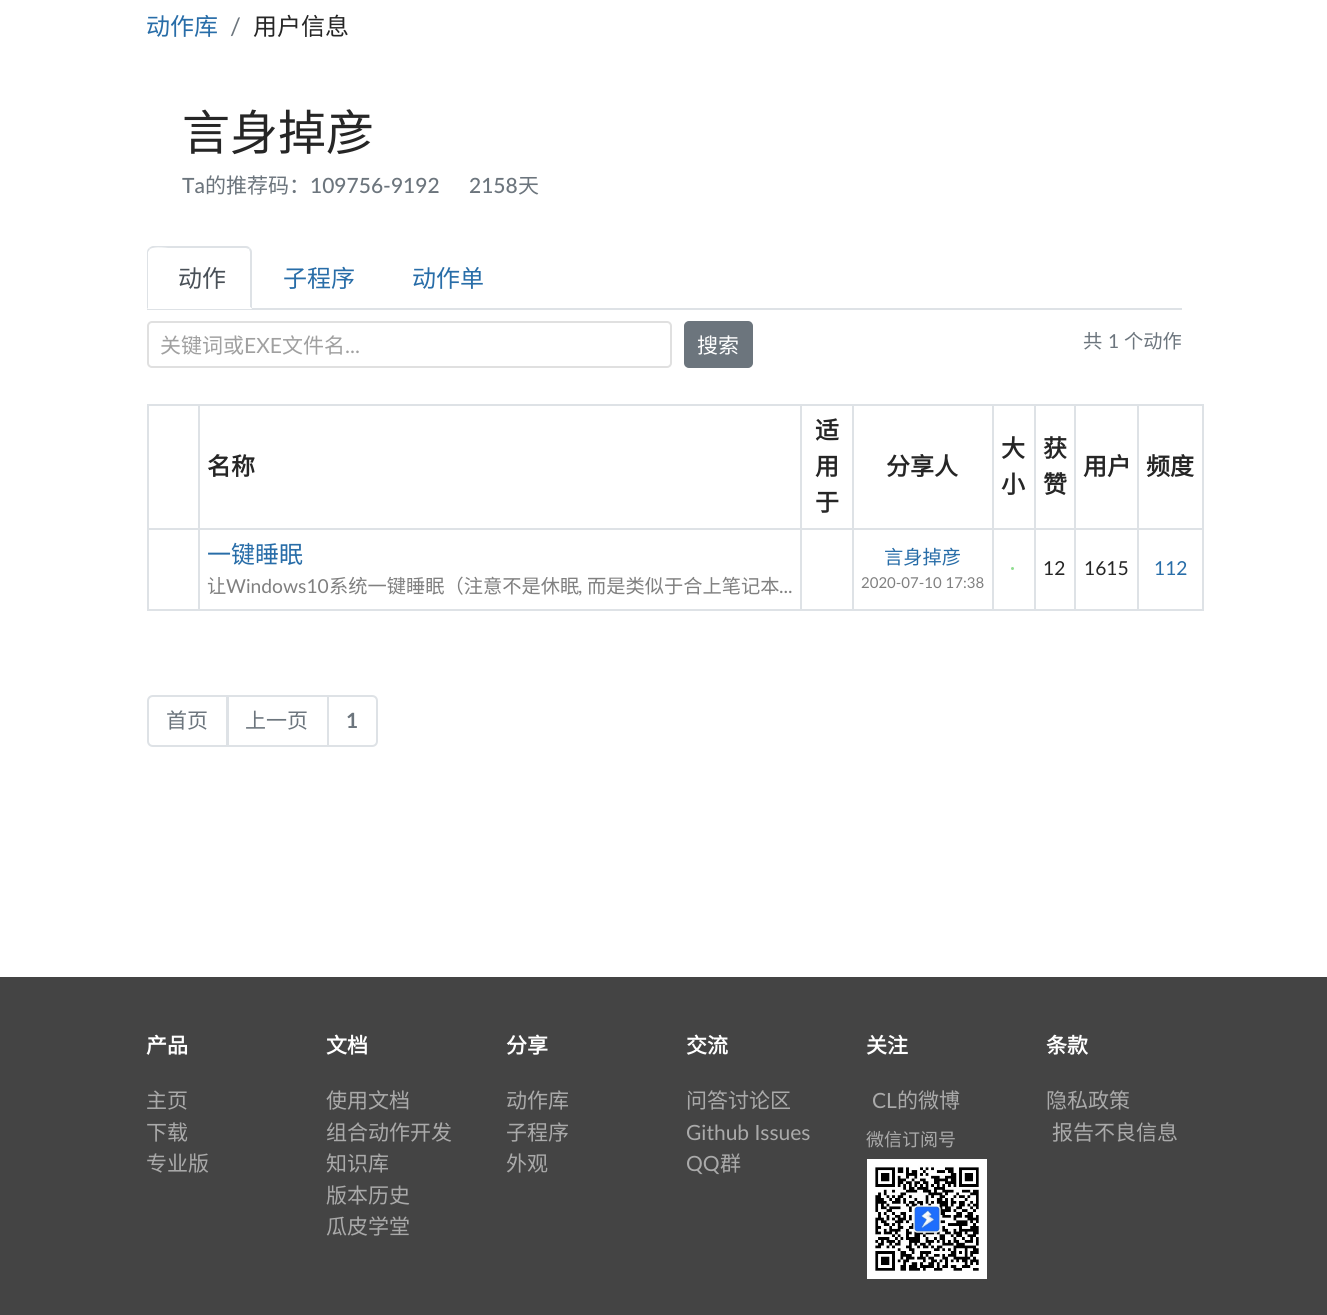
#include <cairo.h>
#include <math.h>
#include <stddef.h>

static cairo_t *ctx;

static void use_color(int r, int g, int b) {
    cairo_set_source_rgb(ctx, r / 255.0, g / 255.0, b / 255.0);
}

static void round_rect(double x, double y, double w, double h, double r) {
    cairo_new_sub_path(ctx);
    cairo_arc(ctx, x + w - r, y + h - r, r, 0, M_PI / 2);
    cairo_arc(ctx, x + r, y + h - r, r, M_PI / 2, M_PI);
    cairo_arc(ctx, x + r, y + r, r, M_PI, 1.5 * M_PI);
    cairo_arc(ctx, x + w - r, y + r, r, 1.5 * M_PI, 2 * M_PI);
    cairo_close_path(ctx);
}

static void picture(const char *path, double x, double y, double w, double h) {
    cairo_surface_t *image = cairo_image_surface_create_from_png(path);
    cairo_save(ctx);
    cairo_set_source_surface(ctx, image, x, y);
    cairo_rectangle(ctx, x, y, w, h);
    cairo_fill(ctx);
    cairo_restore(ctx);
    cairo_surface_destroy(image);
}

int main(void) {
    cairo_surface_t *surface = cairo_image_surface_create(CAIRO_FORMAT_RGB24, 1327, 1315);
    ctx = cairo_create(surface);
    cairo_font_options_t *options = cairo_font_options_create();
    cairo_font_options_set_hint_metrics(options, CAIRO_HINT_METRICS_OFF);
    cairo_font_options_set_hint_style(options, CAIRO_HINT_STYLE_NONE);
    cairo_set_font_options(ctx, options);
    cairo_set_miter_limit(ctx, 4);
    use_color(255, 255, 255);
    cairo_paint(ctx);
    cairo_select_font_face(ctx, "Noto Sans CJK SC", CAIRO_FONT_SLANT_NORMAL, CAIRO_FONT_WEIGHT_NORMAL);
    cairo_set_font_size(ctx, 24);
    use_color(40, 109, 168);
    cairo_move_to(ctx, 146, 35);
    cairo_show_text(ctx, "动作库");
    cairo_select_font_face(ctx, "Lato", CAIRO_FONT_SLANT_NORMAL, CAIRO_FONT_WEIGHT_NORMAL);
    use_color(108, 117, 125);
    cairo_move_to(ctx, 230, 35);
    cairo_show_text(ctx, "/");
    cairo_select_font_face(ctx, "Noto Sans CJK SC", CAIRO_FONT_SLANT_NORMAL, CAIRO_FONT_WEIGHT_NORMAL);
    use_color(38, 38, 38);
    cairo_move_to(ctx, 253, 35);
    cairo_show_text(ctx, "用户信息");
    cairo_set_font_size(ctx, 48);
    cairo_move_to(ctx, 182, 150);
    cairo_show_text(ctx, "言身掉彦");
    cairo_select_font_face(ctx, "Lato Medium", CAIRO_FONT_SLANT_NORMAL, CAIRO_FONT_WEIGHT_NORMAL);
    cairo_set_font_size(ctx, 21);
    use_color(108, 117, 125);
    cairo_move_to(ctx, 182, 193);
    cairo_show_text(ctx, "Ta");
    cairo_select_font_face(ctx, "Noto Sans CJK SC", CAIRO_FONT_SLANT_NORMAL, CAIRO_FONT_WEIGHT_NORMAL);
    cairo_move_to(ctx, 205, 193);
    cairo_show_text(ctx, "的推荐码：");
    cairo_select_font_face(ctx, "Lato Medium", CAIRO_FONT_SLANT_NORMAL, CAIRO_FONT_WEIGHT_NORMAL);
    cairo_move_to(ctx, 310, 193);
    cairo_show_text(ctx, "109756-9192");
    cairo_move_to(ctx, 469, 193);
    cairo_show_text(ctx, "2158");
    cairo_select_font_face(ctx, "Noto Sans CJK SC", CAIRO_FONT_SLANT_NORMAL, CAIRO_FONT_WEIGHT_NORMAL);
    cairo_move_to(ctx, 518, 193);
    cairo_show_text(ctx, "天");
    use_color(222, 226, 230);
    cairo_rectangle(ctx, 147, 308, 1035, 2);
    cairo_fill(ctx);
    use_color(255, 255, 255);
    cairo_new_path(ctx);
    cairo_move_to(ctx, 153, 246);
    cairo_line_to(ctx, 246, 246);
    cairo_curve_to(ctx, 249.5, 246, 252, 248.5, 252, 252);
    cairo_line_to(ctx, 252, 309);
    cairo_line_to(ctx, 147, 309);
    cairo_line_to(ctx, 147, 252);
    cairo_curve_to(ctx, 147, 248.5, 149.5, 246, 153, 246);
    cairo_close_path(ctx);
    cairo_fill(ctx);
    use_color(222, 226, 230);
    cairo_new_path(ctx);
    cairo_move_to(ctx, 153, 246);
    cairo_curve_to(ctx, 152, 246, 150, 247, 149, 248);
    cairo_line_to(ctx, 150, 249);
    cairo_curve_to(ctx, 155, 246, 168, 248, 168, 248);
    cairo_line_to(ctx, 246, 248);
    cairo_line_to(ctx, 249, 249);
    cairo_line_to(ctx, 250, 248);
    cairo_curve_to(ctx, 249, 247, 248, 246, 246, 246);
    cairo_close_path(ctx);
    cairo_fill(ctx);
    cairo_new_path(ctx);
    cairo_move_to(ctx, 252, 309);
    cairo_line_to(ctx, 252, 252);
    cairo_curve_to(ctx, 252, 250, 251, 249, 250, 248);
    cairo_line_to(ctx, 249, 249);
    cairo_line_to(ctx, 250, 252);
    cairo_line_to(ctx, 250, 307);
    cairo_close_path(ctx);
    cairo_fill(ctx);
    use_color(255, 255, 255);
    cairo_new_path(ctx);
    cairo_move_to(ctx, 252, 309);
    cairo_line_to(ctx, 250, 307);
    cairo_line_to(ctx, 250, 308);
    cairo_line_to(ctx, 148, 308);
    cairo_line_to(ctx, 147, 309);
    cairo_close_path(ctx);
    cairo_fill(ctx);
    use_color(222, 226, 230);
    cairo_new_path(ctx);
    cairo_move_to(ctx, 147, 309);
    cairo_line_to(ctx, 148, 308);
    cairo_line_to(ctx, 148, 252);
    cairo_line_to(ctx, 150, 249);
    cairo_line_to(ctx, 149, 248);
    cairo_curve_to(ctx, 148, 249, 147, 250, 147, 252);
    cairo_close_path(ctx);
    cairo_fill(ctx);
    cairo_set_font_size(ctx, 24);
    use_color(73, 80, 87);
    cairo_move_to(ctx, 178, 287);
    cairo_show_text(ctx, "动作");
    use_color(40, 109, 168);
    cairo_move_to(ctx, 283, 287);
    cairo_show_text(ctx, "子程序");
    cairo_move_to(ctx, 412, 287);
    cairo_show_text(ctx, "动作单");
    round_rect(148, 322, 523, 45, 4);
    use_color(224, 224, 224);
    cairo_stroke(ctx);
    cairo_set_font_size(ctx, 21);
    use_color(160, 160, 160);
    cairo_move_to(ctx, 160, 353);
    cairo_show_text(ctx, "关键词或");
    cairo_select_font_face(ctx, "Lato", CAIRO_FONT_SLANT_NORMAL, CAIRO_FONT_WEIGHT_NORMAL);
    cairo_move_to(ctx, 244, 353);
    cairo_show_text(ctx, "EXE");
    cairo_select_font_face(ctx, "Noto Sans CJK SC", CAIRO_FONT_SLANT_NORMAL, CAIRO_FONT_WEIGHT_NORMAL);
    cairo_move_to(ctx, 282, 353);
    cairo_show_text(ctx, "文件名");
    cairo_select_font_face(ctx, "Lato", CAIRO_FONT_SLANT_NORMAL, CAIRO_FONT_WEIGHT_NORMAL);
    cairo_move_to(ctx, 345, 353);
    cairo_show_text(ctx, "...");
    use_color(108, 117, 125);
    round_rect(685, 322, 67, 45, 4);
    cairo_fill_preserve(ctx);
    cairo_stroke(ctx);
    cairo_select_font_face(ctx, "Noto Sans CJK SC", CAIRO_FONT_SLANT_NORMAL, CAIRO_FONT_WEIGHT_NORMAL);
    use_color(255, 255, 255);
    cairo_move_to(ctx, 697, 353);
    cairo_show_text(ctx, "搜索");
    cairo_set_font_size(ctx, 19.25);
    use_color(108, 117, 125);
    cairo_move_to(ctx, 1083, 348);
    cairo_show_text(ctx, "共");
    cairo_select_font_face(ctx, "Lato", CAIRO_FONT_SLANT_NORMAL, CAIRO_FONT_WEIGHT_NORMAL);
    cairo_move_to(ctx, 1108, 348);
    cairo_show_text(ctx, "1");
    cairo_select_font_face(ctx, "Noto Sans CJK SC", CAIRO_FONT_SLANT_NORMAL, CAIRO_FONT_WEIGHT_NORMAL);
    cairo_move_to(ctx, 1124, 348);
    cairo_show_text(ctx, "个动作");
    use_color(222, 226, 230);
    cairo_rectangle(ctx, 147, 404, 1056, 2);
    cairo_fill(ctx);
    cairo_rectangle(ctx, 1202, 404, 2, 207);
    cairo_fill(ctx);
    cairo_rectangle(ctx, 147, 609, 1056, 2);
    cairo_fill(ctx);
    cairo_rectangle(ctx, 147, 404, 2, 207);
    cairo_fill(ctx);
    cairo_rectangle(ctx, 1137, 528, 66, 2);
    cairo_fill(ctx);
    cairo_rectangle(ctx, 1137, 528, 2, 83);
    cairo_fill(ctx);
    cairo_rectangle(ctx, 1074, 528, 65, 2);
    cairo_fill(ctx);
    cairo_rectangle(ctx, 1074, 528, 2, 83);
    cairo_fill(ctx);
    cairo_rectangle(ctx, 1034, 528, 42, 2);
    cairo_fill(ctx);
    cairo_rectangle(ctx, 1034, 528, 2, 83);
    cairo_fill(ctx);
    cairo_rectangle(ctx, 992, 528, 43, 2);
    cairo_fill(ctx);
    cairo_rectangle(ctx, 992, 528, 2, 83);
    cairo_fill(ctx);
    cairo_rectangle(ctx, 852, 528, 141, 2);
    cairo_fill(ctx);
    cairo_rectangle(ctx, 852, 528, 2, 83);
    cairo_fill(ctx);
    cairo_rectangle(ctx, 800, 528, 54, 2);
    cairo_fill(ctx);
    cairo_rectangle(ctx, 800, 528, 2, 83);
    cairo_fill(ctx);
    cairo_rectangle(ctx, 198, 528, 603, 2);
    cairo_fill(ctx);
    cairo_rectangle(ctx, 198, 528, 2, 83);
    cairo_fill(ctx);
    cairo_rectangle(ctx, 147, 528, 53, 2);
    cairo_fill(ctx);
    cairo_rectangle(ctx, 198, 404, 2, 126);
    cairo_fill(ctx);
    cairo_select_font_face(ctx, "Noto Sans CJK SC", CAIRO_FONT_SLANT_NORMAL, CAIRO_FONT_WEIGHT_BOLD);
    cairo_set_font_size(ctx, 24);
    use_color(38, 38, 38);
    cairo_move_to(ctx, 207, 475);
    cairo_show_text(ctx, "名称");
    use_color(222, 226, 230);
    cairo_rectangle(ctx, 800, 404, 2, 126);
    cairo_fill(ctx);
    use_color(38, 38, 38);
    cairo_move_to(ctx, 815, 439);
    cairo_show_text(ctx, "适");
    cairo_move_to(ctx, 815, 475);
    cairo_show_text(ctx, "用");
    cairo_move_to(ctx, 815, 511);
    cairo_show_text(ctx, "于");
    use_color(222, 226, 230);
    cairo_rectangle(ctx, 852, 404, 2, 126);
    cairo_fill(ctx);
    use_color(38, 38, 38);
    cairo_move_to(ctx, 886, 475);
    cairo_show_text(ctx, "分享人");
    use_color(222, 226, 230);
    cairo_rectangle(ctx, 992, 404, 2, 126);
    cairo_fill(ctx);
    use_color(38, 38, 38);
    cairo_move_to(ctx, 1001, 457);
    cairo_show_text(ctx, "大");
    cairo_move_to(ctx, 1001, 493);
    cairo_show_text(ctx, "小");
    use_color(222, 226, 230);
    cairo_rectangle(ctx, 1034, 404, 2, 126);
    cairo_fill(ctx);
    use_color(38, 38, 38);
    cairo_move_to(ctx, 1043, 457);
    cairo_show_text(ctx, "获");
    cairo_move_to(ctx, 1043, 493);
    cairo_show_text(ctx, "赞");
    use_color(222, 226, 230);
    cairo_rectangle(ctx, 1074, 404, 2, 126);
    cairo_fill(ctx);
    use_color(38, 38, 38);
    cairo_move_to(ctx, 1083, 475);
    cairo_show_text(ctx, "用户");
    use_color(222, 226, 230);
    cairo_rectangle(ctx, 1137, 404, 2, 126);
    cairo_fill(ctx);
    use_color(38, 38, 38);
    cairo_move_to(ctx, 1146, 475);
    cairo_show_text(ctx, "频度");
    cairo_select_font_face(ctx, "Noto Sans CJK SC", CAIRO_FONT_SLANT_NORMAL, CAIRO_FONT_WEIGHT_NORMAL);
    use_color(40, 109, 168);
    cairo_move_to(ctx, 207, 563);
    cairo_show_text(ctx, "一键睡眠");
    cairo_set_font_size(ctx, 19.25);
    use_color(128, 128, 128);
    cairo_move_to(ctx, 207, 593);
    cairo_show_text(ctx, "让");
    cairo_select_font_face(ctx, "Lato", CAIRO_FONT_SLANT_NORMAL, CAIRO_FONT_WEIGHT_NORMAL);
    cairo_move_to(ctx, 226, 593);
    cairo_show_text(ctx, "Windows10");
    cairo_select_font_face(ctx, "Noto Sans CJK SC", CAIRO_FONT_SLANT_NORMAL, CAIRO_FONT_WEIGHT_NORMAL);
    cairo_move_to(ctx, 329, 593);
    cairo_show_text(ctx, "系统一键睡眠（注意不是休眠");
    cairo_select_font_face(ctx, "Lato", CAIRO_FONT_SLANT_NORMAL, CAIRO_FONT_WEIGHT_NORMAL);
    cairo_move_to(ctx, 578, 593);
    cairo_show_text(ctx, ",");
    cairo_select_font_face(ctx, "Noto Sans CJK SC", CAIRO_FONT_SLANT_NORMAL, CAIRO_FONT_WEIGHT_NORMAL);
    cairo_move_to(ctx, 587, 593);
    cairo_show_text(ctx, "而是类似于合上笔记本");
    cairo_select_font_face(ctx, "Lato", CAIRO_FONT_SLANT_NORMAL, CAIRO_FONT_WEIGHT_NORMAL);
    cairo_move_to(ctx, 779, 593);
    cairo_show_text(ctx, "...");
    cairo_select_font_face(ctx, "Noto Sans CJK SC", CAIRO_FONT_SLANT_NORMAL, CAIRO_FONT_WEIGHT_NORMAL);
    use_color(40, 109, 168);
    cairo_move_to(ctx, 884, 564);
    cairo_show_text(ctx, "言身掉彦");
    cairo_select_font_face(ctx, "Lato", CAIRO_FONT_SLANT_NORMAL, CAIRO_FONT_WEIGHT_NORMAL);
    cairo_set_font_size(ctx, 15);
    use_color(128, 128, 128);
    cairo_move_to(ctx, 861, 588);
    cairo_show_text(ctx, "2020-07-10 17:38");
    use_color(144, 221, 144);
    cairo_new_path(ctx);
    cairo_arc(ctx, 1012.5, 568.5, 1.5, 0, 2 * M_PI);
    cairo_fill(ctx);
    cairo_set_font_size(ctx, 19.25);
    use_color(38, 38, 38);
    cairo_move_to(ctx, 1043, 575);
    cairo_show_text(ctx, "12");
    cairo_move_to(ctx, 1084, 575);
    cairo_show_text(ctx, "1615");
    use_color(40, 109, 168);
    cairo_move_to(ctx, 1154, 575);
    cairo_show_text(ctx, "112");
    cairo_new_path(ctx);
    cairo_move_to(ctx, 153, 696);
    cairo_line_to(ctx, 227, 696);
    cairo_line_to(ctx, 227, 746);
    cairo_line_to(ctx, 153, 746);
    cairo_curve_to(ctx, 150, 746, 148, 744, 148, 741);
    cairo_line_to(ctx, 148, 701);
    cairo_curve_to(ctx, 148, 698, 150, 696, 153, 696);
    cairo_close_path(ctx);
    use_color(222, 226, 230);
    cairo_stroke(ctx);
    cairo_select_font_face(ctx, "Noto Sans CJK SC", CAIRO_FONT_SLANT_NORMAL, CAIRO_FONT_WEIGHT_NORMAL);
    cairo_set_font_size(ctx, 21);
    use_color(108, 117, 125);
    cairo_move_to(ctx, 166, 728);
    cairo_show_text(ctx, "首页");
    cairo_rectangle(ctx, 228, 696, 100, 50);
    use_color(222, 226, 230);
    cairo_stroke(ctx);
    use_color(108, 117, 125);
    cairo_move_to(ctx, 245, 728);
    cairo_show_text(ctx, "上一页");
    use_color(255, 255, 255);
    cairo_new_path(ctx);
    cairo_move_to(ctx, 328, 696);
    cairo_line_to(ctx, 372, 696);
    cairo_curve_to(ctx, 375, 696, 377, 698, 377, 701);
    cairo_line_to(ctx, 377, 741);
    cairo_curve_to(ctx, 377, 744, 375, 746, 372, 746);
    cairo_line_to(ctx, 328, 746);
    cairo_close_path(ctx);
    cairo_fill_preserve(ctx);
    use_color(222, 226, 230);
    cairo_stroke(ctx);
    cairo_select_font_face(ctx, "Lato", CAIRO_FONT_SLANT_NORMAL, CAIRO_FONT_WEIGHT_BOLD);
    use_color(108, 117, 125);
    cairo_move_to(ctx, 346, 728);
    cairo_show_text(ctx, "1");
    use_color(68, 68, 68);
    cairo_rectangle(ctx, 0, 977, 1327, 338);
    cairo_fill(ctx);
    cairo_select_font_face(ctx, "Noto Sans CJK SC", CAIRO_FONT_SLANT_NORMAL, CAIRO_FONT_WEIGHT_BOLD);
    use_color(255, 255, 255);
    cairo_move_to(ctx, 146, 1053);
    cairo_show_text(ctx, "产品");
    cairo_select_font_face(ctx, "Noto Sans CJK SC", CAIRO_FONT_SLANT_NORMAL, CAIRO_FONT_WEIGHT_NORMAL);
    use_color(170, 170, 170);
    cairo_move_to(ctx, 146, 1108);
    cairo_show_text(ctx, "主页");
    cairo_move_to(ctx, 146, 1140);
    cairo_show_text(ctx, "下载");
    cairo_move_to(ctx, 146, 1171);
    cairo_show_text(ctx, "专业版");
    cairo_select_font_face(ctx, "Noto Sans CJK SC", CAIRO_FONT_SLANT_NORMAL, CAIRO_FONT_WEIGHT_BOLD);
    use_color(255, 255, 255);
    cairo_move_to(ctx, 326, 1053);
    cairo_show_text(ctx, "文档");
    cairo_select_font_face(ctx, "Noto Sans CJK SC", CAIRO_FONT_SLANT_NORMAL, CAIRO_FONT_WEIGHT_NORMAL);
    use_color(170, 170, 170);
    cairo_move_to(ctx, 326, 1108);
    cairo_show_text(ctx, "使用文档");
    cairo_move_to(ctx, 326, 1140);
    cairo_show_text(ctx, "组合动作开发");
    cairo_move_to(ctx, 326, 1171);
    cairo_show_text(ctx, "知识库");
    cairo_move_to(ctx, 326, 1203);
    cairo_show_text(ctx, "版本历史");
    cairo_move_to(ctx, 326, 1234);
    cairo_show_text(ctx, "瓜皮学堂");
    cairo_select_font_face(ctx, "Noto Sans CJK SC", CAIRO_FONT_SLANT_NORMAL, CAIRO_FONT_WEIGHT_BOLD);
    use_color(255, 255, 255);
    cairo_move_to(ctx, 506, 1053);
    cairo_show_text(ctx, "分享");
    cairo_select_font_face(ctx, "Noto Sans CJK SC", CAIRO_FONT_SLANT_NORMAL, CAIRO_FONT_WEIGHT_NORMAL);
    use_color(170, 170, 170);
    cairo_move_to(ctx, 506, 1108);
    cairo_show_text(ctx, "动作库");
    cairo_move_to(ctx, 506, 1140);
    cairo_show_text(ctx, "子程序");
    cairo_move_to(ctx, 506, 1171);
    cairo_show_text(ctx, "外观");
    cairo_select_font_face(ctx, "Noto Sans CJK SC", CAIRO_FONT_SLANT_NORMAL, CAIRO_FONT_WEIGHT_BOLD);
    use_color(255, 255, 255);
    cairo_move_to(ctx, 686, 1053);
    cairo_show_text(ctx, "交流");
    cairo_select_font_face(ctx, "Noto Sans CJK SC", CAIRO_FONT_SLANT_NORMAL, CAIRO_FONT_WEIGHT_NORMAL);
    use_color(170, 170, 170);
    cairo_move_to(ctx, 686, 1108);
    cairo_show_text(ctx, "问答讨论区");
    cairo_select_font_face(ctx, "Lato", CAIRO_FONT_SLANT_NORMAL, CAIRO_FONT_WEIGHT_NORMAL);
    cairo_move_to(ctx, 686, 1140);
    cairo_show_text(ctx, "Github Issues");
    cairo_move_to(ctx, 686, 1171);
    cairo_show_text(ctx, "QQ");
    cairo_select_font_face(ctx, "Noto Sans CJK SC", CAIRO_FONT_SLANT_NORMAL, CAIRO_FONT_WEIGHT_NORMAL);
    cairo_move_to(ctx, 720, 1171);
    cairo_show_text(ctx, "群");
    cairo_select_font_face(ctx, "Noto Sans CJK SC", CAIRO_FONT_SLANT_NORMAL, CAIRO_FONT_WEIGHT_BOLD);
    use_color(255, 255, 255);
    cairo_move_to(ctx, 866, 1053);
    cairo_show_text(ctx, "关注");
    cairo_select_font_face(ctx, "Lato", CAIRO_FONT_SLANT_NORMAL, CAIRO_FONT_WEIGHT_NORMAL);
    use_color(170, 170, 170);
    cairo_move_to(ctx, 872, 1108);
    cairo_show_text(ctx, "CL");
    cairo_select_font_face(ctx, "Noto Sans CJK SC", CAIRO_FONT_SLANT_NORMAL, CAIRO_FONT_WEIGHT_NORMAL);
    cairo_move_to(ctx, 897, 1108);
    cairo_show_text(ctx, "的微博");
    cairo_set_font_size(ctx, 18);
    cairo_move_to(ctx, 866, 1146);
    cairo_show_text(ctx, "微信订阅号");
    picture("img1.png", 867, 1159, 120, 120);
    cairo_select_font_face(ctx, "Noto Sans CJK SC", CAIRO_FONT_SLANT_NORMAL, CAIRO_FONT_WEIGHT_BOLD);
    cairo_set_font_size(ctx, 21);
    use_color(255, 255, 255);
    cairo_move_to(ctx, 1046, 1053);
    cairo_show_text(ctx, "条款");
    cairo_select_font_face(ctx, "Noto Sans CJK SC", CAIRO_FONT_SLANT_NORMAL, CAIRO_FONT_WEIGHT_NORMAL);
    use_color(170, 170, 170);
    cairo_move_to(ctx, 1046, 1108);
    cairo_show_text(ctx, "隐私政策");
    cairo_move_to(ctx, 1052, 1140);
    cairo_show_text(ctx, "报告不良信息");
    cairo_surface_write_to_png(surface, "result.png");
    cairo_font_options_destroy(options);
    cairo_destroy(ctx);
    cairo_surface_destroy(surface);
    return 0;
}
